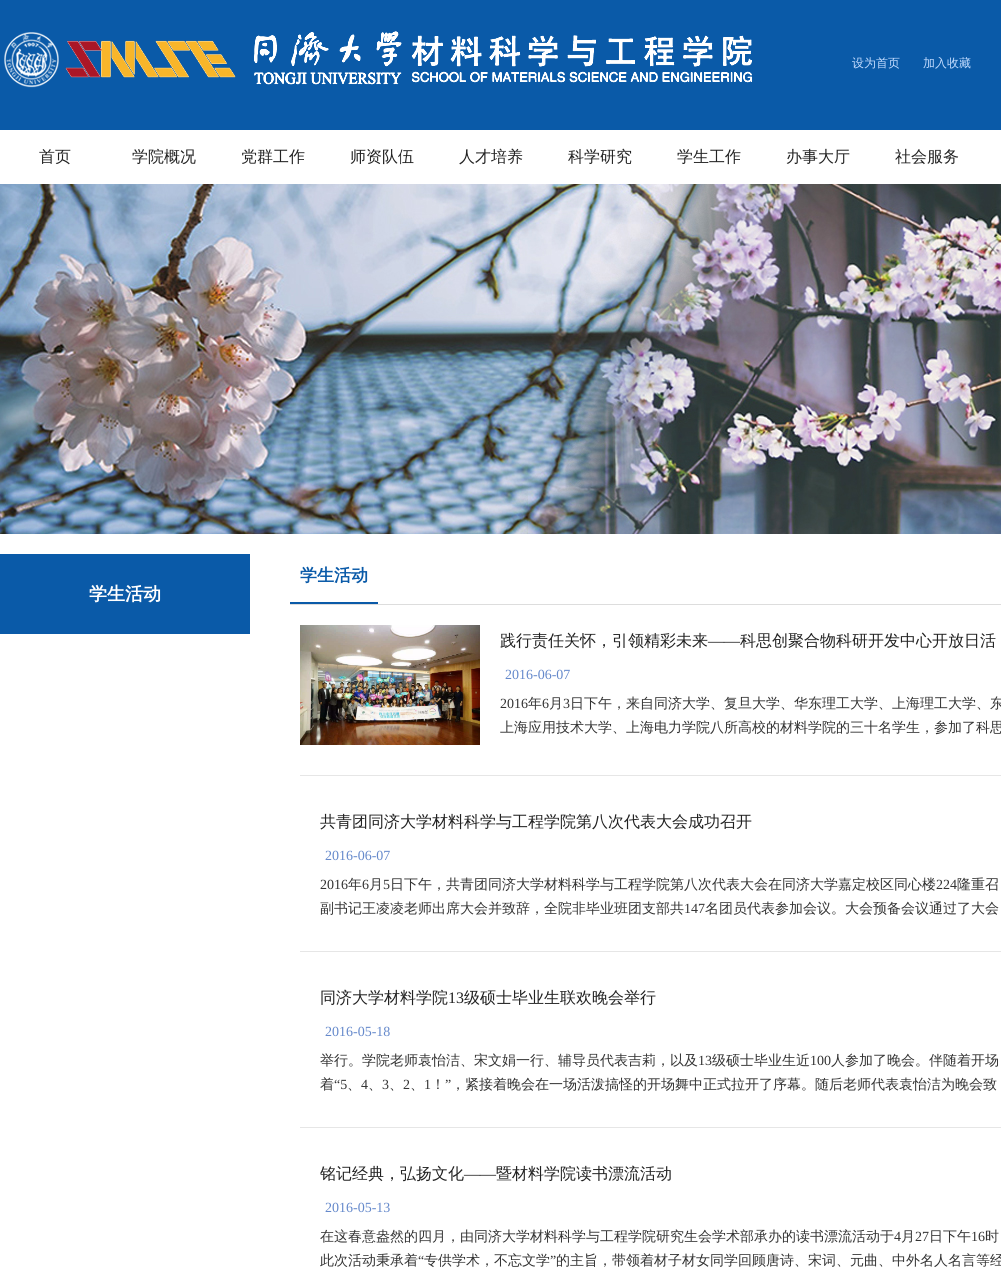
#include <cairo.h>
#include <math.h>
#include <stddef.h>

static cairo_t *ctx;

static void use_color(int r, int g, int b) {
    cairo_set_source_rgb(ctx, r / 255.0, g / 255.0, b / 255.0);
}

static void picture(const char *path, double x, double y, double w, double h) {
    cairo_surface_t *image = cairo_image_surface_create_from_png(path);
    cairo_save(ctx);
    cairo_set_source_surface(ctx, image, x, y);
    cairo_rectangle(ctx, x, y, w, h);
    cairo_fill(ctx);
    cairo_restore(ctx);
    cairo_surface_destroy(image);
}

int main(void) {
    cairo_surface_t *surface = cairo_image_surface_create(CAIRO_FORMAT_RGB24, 1001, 1277);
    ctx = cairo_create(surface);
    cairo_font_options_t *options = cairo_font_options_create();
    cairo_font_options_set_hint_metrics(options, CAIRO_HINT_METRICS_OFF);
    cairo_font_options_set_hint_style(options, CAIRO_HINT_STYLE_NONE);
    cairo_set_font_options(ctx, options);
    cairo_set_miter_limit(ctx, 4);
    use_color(255, 255, 255);
    cairo_paint(ctx);
    use_color(10, 90, 168);
    cairo_rectangle(ctx, 0, 0, 1001, 130);
    cairo_fill(ctx);
    picture("img1.png", 4, 31, 749, 57);
    cairo_select_font_face(ctx, "WenQuanYi Zen Hei Medium", CAIRO_FONT_SLANT_NORMAL, CAIRO_FONT_WEIGHT_NORMAL);
    cairo_set_font_size(ctx, 12);
    use_color(195, 220, 255);
    cairo_move_to(ctx, 852, 67);
    cairo_show_text(ctx, "设为首页");
    cairo_move_to(ctx, 923, 67);
    cairo_show_text(ctx, "加入收藏");
    cairo_set_font_size(ctx, 16);
    use_color(34, 34, 34);
    cairo_move_to(ctx, 39, 162);
    cairo_show_text(ctx, "首页");
    cairo_move_to(ctx, 132, 162);
    cairo_show_text(ctx, "学院概况");
    cairo_move_to(ctx, 241, 162);
    cairo_show_text(ctx, "党群工作");
    cairo_move_to(ctx, 350, 162);
    cairo_show_text(ctx, "师资队伍");
    cairo_move_to(ctx, 459, 162);
    cairo_show_text(ctx, "人才培养");
    cairo_move_to(ctx, 568, 162);
    cairo_show_text(ctx, "科学研究");
    cairo_move_to(ctx, 677, 162);
    cairo_show_text(ctx, "学生工作");
    cairo_move_to(ctx, 786, 162);
    cairo_show_text(ctx, "办事大厅");
    cairo_move_to(ctx, 895, 162);
    cairo_show_text(ctx, "社会服务");
    picture("img2.png", 0, 184, 1001, 350);
    use_color(10, 90, 168);
    cairo_rectangle(ctx, 0, 554, 250, 80);
    cairo_fill(ctx);
    cairo_select_font_face(ctx, "WenQuanYi Zen Hei", CAIRO_FONT_SLANT_NORMAL, CAIRO_FONT_WEIGHT_BOLD);
    cairo_set_font_size(ctx, 18);
    use_color(255, 255, 255);
    cairo_move_to(ctx, 89, 600);
    cairo_show_text(ctx, "学生活动");
    use_color(221, 221, 221);
    cairo_rectangle(ctx, 290, 604, 711, 1);
    cairo_fill(ctx);
    use_color(10, 90, 168);
    cairo_rectangle(ctx, 290, 602, 88, 2);
    cairo_fill(ctx);
    cairo_set_font_size(ctx, 17);
    cairo_move_to(ctx, 300, 581);
    cairo_show_text(ctx, "学生活动");
    use_color(230, 230, 230);
    cairo_rectangle(ctx, 300, 775, 701, 1);
    cairo_fill(ctx);
    picture("img3.png", 300, 625, 180, 120);
    cairo_select_font_face(ctx, "WenQuanYi Zen Hei Medium", CAIRO_FONT_SLANT_NORMAL, CAIRO_FONT_WEIGHT_NORMAL);
    cairo_set_font_size(ctx, 16);
    use_color(34, 34, 34);
    cairo_move_to(ctx, 500, 646);
    cairo_show_text(ctx, "践行责任关怀，引领精彩未来");
    cairo_select_font_face(ctx, "Liberation Serif", CAIRO_FONT_SLANT_NORMAL, CAIRO_FONT_WEIGHT_NORMAL);
    cairo_move_to(ctx, 708, 646);
    cairo_show_text(ctx, "——");
    cairo_select_font_face(ctx, "WenQuanYi Zen Hei Medium", CAIRO_FONT_SLANT_NORMAL, CAIRO_FONT_WEIGHT_NORMAL);
    cairo_move_to(ctx, 740, 646);
    cairo_show_text(ctx, "科思创聚合物科研开发中心开放日活");
    cairo_select_font_face(ctx, "Liberation Serif", CAIRO_FONT_SLANT_NORMAL, CAIRO_FONT_WEIGHT_NORMAL);
    cairo_set_font_size(ctx, 14);
    use_color(101, 137, 203);
    cairo_move_to(ctx, 505, 679);
    cairo_show_text(ctx, "2016-06-07");
    use_color(51, 51, 51);
    cairo_move_to(ctx, 500, 708);
    cairo_show_text(ctx, "2016");
    cairo_select_font_face(ctx, "WenQuanYi Zen Hei Medium", CAIRO_FONT_SLANT_NORMAL, CAIRO_FONT_WEIGHT_NORMAL);
    cairo_move_to(ctx, 528, 708);
    cairo_show_text(ctx, "年");
    cairo_select_font_face(ctx, "Liberation Serif", CAIRO_FONT_SLANT_NORMAL, CAIRO_FONT_WEIGHT_NORMAL);
    cairo_move_to(ctx, 542, 708);
    cairo_show_text(ctx, "6");
    cairo_select_font_face(ctx, "WenQuanYi Zen Hei Medium", CAIRO_FONT_SLANT_NORMAL, CAIRO_FONT_WEIGHT_NORMAL);
    cairo_move_to(ctx, 549, 708);
    cairo_show_text(ctx, "月");
    cairo_select_font_face(ctx, "Liberation Serif", CAIRO_FONT_SLANT_NORMAL, CAIRO_FONT_WEIGHT_NORMAL);
    cairo_move_to(ctx, 563, 708);
    cairo_show_text(ctx, "3");
    cairo_select_font_face(ctx, "WenQuanYi Zen Hei Medium", CAIRO_FONT_SLANT_NORMAL, CAIRO_FONT_WEIGHT_NORMAL);
    cairo_move_to(ctx, 570, 708);
    cairo_show_text(ctx, "日下午，来自同济大学、复旦大学、华东理工大学、上海理工大学、东");
    cairo_move_to(ctx, 500, 732);
    cairo_show_text(ctx, "上海应用技术大学、上海电力学院八所高校的材料学院的三十名学生，参加了科思");
    use_color(230, 230, 230);
    cairo_rectangle(ctx, 300, 951, 701, 1);
    cairo_fill(ctx);
    cairo_set_font_size(ctx, 16);
    use_color(34, 34, 34);
    cairo_move_to(ctx, 320, 827);
    cairo_show_text(ctx, "共青团同济大学材料科学与工程学院第八次代表大会成功召开");
    cairo_select_font_face(ctx, "Liberation Serif", CAIRO_FONT_SLANT_NORMAL, CAIRO_FONT_WEIGHT_NORMAL);
    cairo_set_font_size(ctx, 14);
    use_color(101, 137, 203);
    cairo_move_to(ctx, 325, 860);
    cairo_show_text(ctx, "2016-06-07");
    use_color(51, 51, 51);
    cairo_move_to(ctx, 320, 889);
    cairo_show_text(ctx, "2016");
    cairo_select_font_face(ctx, "WenQuanYi Zen Hei Medium", CAIRO_FONT_SLANT_NORMAL, CAIRO_FONT_WEIGHT_NORMAL);
    cairo_move_to(ctx, 348, 889);
    cairo_show_text(ctx, "年");
    cairo_select_font_face(ctx, "Liberation Serif", CAIRO_FONT_SLANT_NORMAL, CAIRO_FONT_WEIGHT_NORMAL);
    cairo_move_to(ctx, 362, 889);
    cairo_show_text(ctx, "6");
    cairo_select_font_face(ctx, "WenQuanYi Zen Hei Medium", CAIRO_FONT_SLANT_NORMAL, CAIRO_FONT_WEIGHT_NORMAL);
    cairo_move_to(ctx, 369, 889);
    cairo_show_text(ctx, "月");
    cairo_select_font_face(ctx, "Liberation Serif", CAIRO_FONT_SLANT_NORMAL, CAIRO_FONT_WEIGHT_NORMAL);
    cairo_move_to(ctx, 383, 889);
    cairo_show_text(ctx, "5");
    cairo_select_font_face(ctx, "WenQuanYi Zen Hei Medium", CAIRO_FONT_SLANT_NORMAL, CAIRO_FONT_WEIGHT_NORMAL);
    cairo_move_to(ctx, 390, 889);
    cairo_show_text(ctx, "日下午，共青团同济大学材料科学与工程学院第八次代表大会在同济大学嘉定校区同心楼");
    cairo_select_font_face(ctx, "Liberation Serif", CAIRO_FONT_SLANT_NORMAL, CAIRO_FONT_WEIGHT_NORMAL);
    cairo_move_to(ctx, 936, 889);
    cairo_show_text(ctx, "224");
    cairo_select_font_face(ctx, "WenQuanYi Zen Hei Medium", CAIRO_FONT_SLANT_NORMAL, CAIRO_FONT_WEIGHT_NORMAL);
    cairo_move_to(ctx, 957, 889);
    cairo_show_text(ctx, "隆重召");
    cairo_move_to(ctx, 320, 913);
    cairo_show_text(ctx, "副书记王凌凌老师出席大会并致辞，全院非毕业班团支部共");
    cairo_select_font_face(ctx, "Liberation Serif", CAIRO_FONT_SLANT_NORMAL, CAIRO_FONT_WEIGHT_NORMAL);
    cairo_move_to(ctx, 684, 913);
    cairo_show_text(ctx, "147");
    cairo_select_font_face(ctx, "WenQuanYi Zen Hei Medium", CAIRO_FONT_SLANT_NORMAL, CAIRO_FONT_WEIGHT_NORMAL);
    cairo_move_to(ctx, 705, 913);
    cairo_show_text(ctx, "名团员代表参加会议。大会预备会议通过了大会");
    use_color(230, 230, 230);
    cairo_rectangle(ctx, 300, 1127, 701, 1);
    cairo_fill(ctx);
    cairo_set_font_size(ctx, 16);
    use_color(34, 34, 34);
    cairo_move_to(ctx, 320, 1003);
    cairo_show_text(ctx, "同济大学材料学院");
    cairo_select_font_face(ctx, "Liberation Serif", CAIRO_FONT_SLANT_NORMAL, CAIRO_FONT_WEIGHT_NORMAL);
    cairo_move_to(ctx, 448, 1003);
    cairo_show_text(ctx, "13");
    cairo_select_font_face(ctx, "WenQuanYi Zen Hei Medium", CAIRO_FONT_SLANT_NORMAL, CAIRO_FONT_WEIGHT_NORMAL);
    cairo_move_to(ctx, 464, 1003);
    cairo_show_text(ctx, "级硕士毕业生联欢晚会举行");
    cairo_select_font_face(ctx, "Liberation Serif", CAIRO_FONT_SLANT_NORMAL, CAIRO_FONT_WEIGHT_NORMAL);
    cairo_set_font_size(ctx, 14);
    use_color(101, 137, 203);
    cairo_move_to(ctx, 325, 1036);
    cairo_show_text(ctx, "2016-05-18");
    cairo_select_font_face(ctx, "WenQuanYi Zen Hei Medium", CAIRO_FONT_SLANT_NORMAL, CAIRO_FONT_WEIGHT_NORMAL);
    use_color(51, 51, 51);
    cairo_move_to(ctx, 320, 1065);
    cairo_show_text(ctx, "举行。学院老师袁怡洁、宋文娟一行、辅导员代表吉莉，以及");
    cairo_select_font_face(ctx, "Liberation Serif", CAIRO_FONT_SLANT_NORMAL, CAIRO_FONT_WEIGHT_NORMAL);
    cairo_move_to(ctx, 698, 1065);
    cairo_show_text(ctx, "13");
    cairo_select_font_face(ctx, "WenQuanYi Zen Hei Medium", CAIRO_FONT_SLANT_NORMAL, CAIRO_FONT_WEIGHT_NORMAL);
    cairo_move_to(ctx, 712, 1065);
    cairo_show_text(ctx, "级硕士毕业生近");
    cairo_select_font_face(ctx, "Liberation Serif", CAIRO_FONT_SLANT_NORMAL, CAIRO_FONT_WEIGHT_NORMAL);
    cairo_move_to(ctx, 810, 1065);
    cairo_show_text(ctx, "100");
    cairo_select_font_face(ctx, "WenQuanYi Zen Hei Medium", CAIRO_FONT_SLANT_NORMAL, CAIRO_FONT_WEIGHT_NORMAL);
    cairo_move_to(ctx, 831, 1065);
    cairo_show_text(ctx, "人参加了晚会。伴随着开场");
    cairo_move_to(ctx, 320, 1089);
    cairo_show_text(ctx, "着");
    cairo_select_font_face(ctx, "Liberation Serif", CAIRO_FONT_SLANT_NORMAL, CAIRO_FONT_WEIGHT_NORMAL);
    cairo_move_to(ctx, 334, 1089);
    cairo_show_text(ctx, "“5");
    cairo_move_to(ctx, 361, 1089);
    cairo_show_text(ctx, "4");
    cairo_move_to(ctx, 382, 1089);
    cairo_show_text(ctx, "3");
    cairo_move_to(ctx, 403, 1089);
    cairo_show_text(ctx, "2");
    cairo_move_to(ctx, 424, 1089);
    cairo_show_text(ctx, "1");
    cairo_select_font_face(ctx, "WenQuanYi Zen Hei Medium", CAIRO_FONT_SLANT_NORMAL, CAIRO_FONT_WEIGHT_NORMAL);
    cairo_move_to(ctx, 431, 1089);
    cairo_show_text(ctx, "！");
    cairo_select_font_face(ctx, "Liberation Serif", CAIRO_FONT_SLANT_NORMAL, CAIRO_FONT_WEIGHT_NORMAL);
    cairo_move_to(ctx, 445, 1089);
    cairo_show_text(ctx, "”");
    cairo_select_font_face(ctx, "WenQuanYi Zen Hei Medium", CAIRO_FONT_SLANT_NORMAL, CAIRO_FONT_WEIGHT_NORMAL);
    cairo_move_to(ctx, 451, 1089);
    cairo_show_text(ctx, "，紧接着晚会在一场活泼搞怪的开场舞中正式拉开了序幕。随后老师代表袁怡洁为晚会致");
    cairo_move_to(ctx, 347, 1089);
    cairo_show_text(ctx, "、");
    cairo_move_to(ctx, 368, 1089);
    cairo_show_text(ctx, "、");
    cairo_move_to(ctx, 389, 1089);
    cairo_show_text(ctx, "、");
    cairo_move_to(ctx, 410, 1089);
    cairo_show_text(ctx, "、");
    cairo_set_font_size(ctx, 16);
    use_color(34, 34, 34);
    cairo_move_to(ctx, 320, 1179);
    cairo_show_text(ctx, "铭记经典，弘扬文化");
    cairo_select_font_face(ctx, "Liberation Serif", CAIRO_FONT_SLANT_NORMAL, CAIRO_FONT_WEIGHT_NORMAL);
    cairo_move_to(ctx, 464, 1179);
    cairo_show_text(ctx, "——");
    cairo_select_font_face(ctx, "WenQuanYi Zen Hei Medium", CAIRO_FONT_SLANT_NORMAL, CAIRO_FONT_WEIGHT_NORMAL);
    cairo_move_to(ctx, 496, 1179);
    cairo_show_text(ctx, "暨材料学院读书漂流活动");
    cairo_select_font_face(ctx, "Liberation Serif", CAIRO_FONT_SLANT_NORMAL, CAIRO_FONT_WEIGHT_NORMAL);
    cairo_set_font_size(ctx, 14);
    use_color(101, 137, 203);
    cairo_move_to(ctx, 325, 1212);
    cairo_show_text(ctx, "2016-05-13");
    cairo_select_font_face(ctx, "WenQuanYi Zen Hei Medium", CAIRO_FONT_SLANT_NORMAL, CAIRO_FONT_WEIGHT_NORMAL);
    use_color(51, 51, 51);
    cairo_move_to(ctx, 320, 1241);
    cairo_show_text(ctx, "在这春意盎然的四月，由同济大学材料科学与工程学院研究生会学术部承办的读书漂流活动于");
    cairo_select_font_face(ctx, "Liberation Serif", CAIRO_FONT_SLANT_NORMAL, CAIRO_FONT_WEIGHT_NORMAL);
    cairo_move_to(ctx, 894, 1241);
    cairo_show_text(ctx, "4");
    cairo_select_font_face(ctx, "WenQuanYi Zen Hei Medium", CAIRO_FONT_SLANT_NORMAL, CAIRO_FONT_WEIGHT_NORMAL);
    cairo_move_to(ctx, 901, 1241);
    cairo_show_text(ctx, "月");
    cairo_select_font_face(ctx, "Liberation Serif", CAIRO_FONT_SLANT_NORMAL, CAIRO_FONT_WEIGHT_NORMAL);
    cairo_move_to(ctx, 915, 1241);
    cairo_show_text(ctx, "27");
    cairo_select_font_face(ctx, "WenQuanYi Zen Hei Medium", CAIRO_FONT_SLANT_NORMAL, CAIRO_FONT_WEIGHT_NORMAL);
    cairo_move_to(ctx, 929, 1241);
    cairo_show_text(ctx, "日下午");
    cairo_select_font_face(ctx, "Liberation Serif", CAIRO_FONT_SLANT_NORMAL, CAIRO_FONT_WEIGHT_NORMAL);
    cairo_move_to(ctx, 971, 1241);
    cairo_show_text(ctx, "16");
    cairo_select_font_face(ctx, "WenQuanYi Zen Hei Medium", CAIRO_FONT_SLANT_NORMAL, CAIRO_FONT_WEIGHT_NORMAL);
    cairo_move_to(ctx, 985, 1241);
    cairo_show_text(ctx, "时");
    cairo_move_to(ctx, 320, 1265);
    cairo_show_text(ctx, "此次活动秉承着");
    cairo_select_font_face(ctx, "Liberation Serif", CAIRO_FONT_SLANT_NORMAL, CAIRO_FONT_WEIGHT_NORMAL);
    cairo_move_to(ctx, 418, 1265);
    cairo_show_text(ctx, "“");
    cairo_select_font_face(ctx, "WenQuanYi Zen Hei Medium", CAIRO_FONT_SLANT_NORMAL, CAIRO_FONT_WEIGHT_NORMAL);
    cairo_move_to(ctx, 424, 1265);
    cairo_show_text(ctx, "专供学术，不忘文学");
    cairo_select_font_face(ctx, "Liberation Serif", CAIRO_FONT_SLANT_NORMAL, CAIRO_FONT_WEIGHT_NORMAL);
    cairo_move_to(ctx, 550, 1265);
    cairo_show_text(ctx, "”");
    cairo_select_font_face(ctx, "WenQuanYi Zen Hei Medium", CAIRO_FONT_SLANT_NORMAL, CAIRO_FONT_WEIGHT_NORMAL);
    cairo_move_to(ctx, 556, 1265);
    cairo_show_text(ctx, "的主旨，带领着材子材女同学回顾唐诗、宋词、元曲、中外名人名言等经");
    cairo_surface_write_to_png(surface, "result.png");
    cairo_font_options_destroy(options);
    cairo_destroy(ctx);
    cairo_surface_destroy(surface);
    return 0;
}
